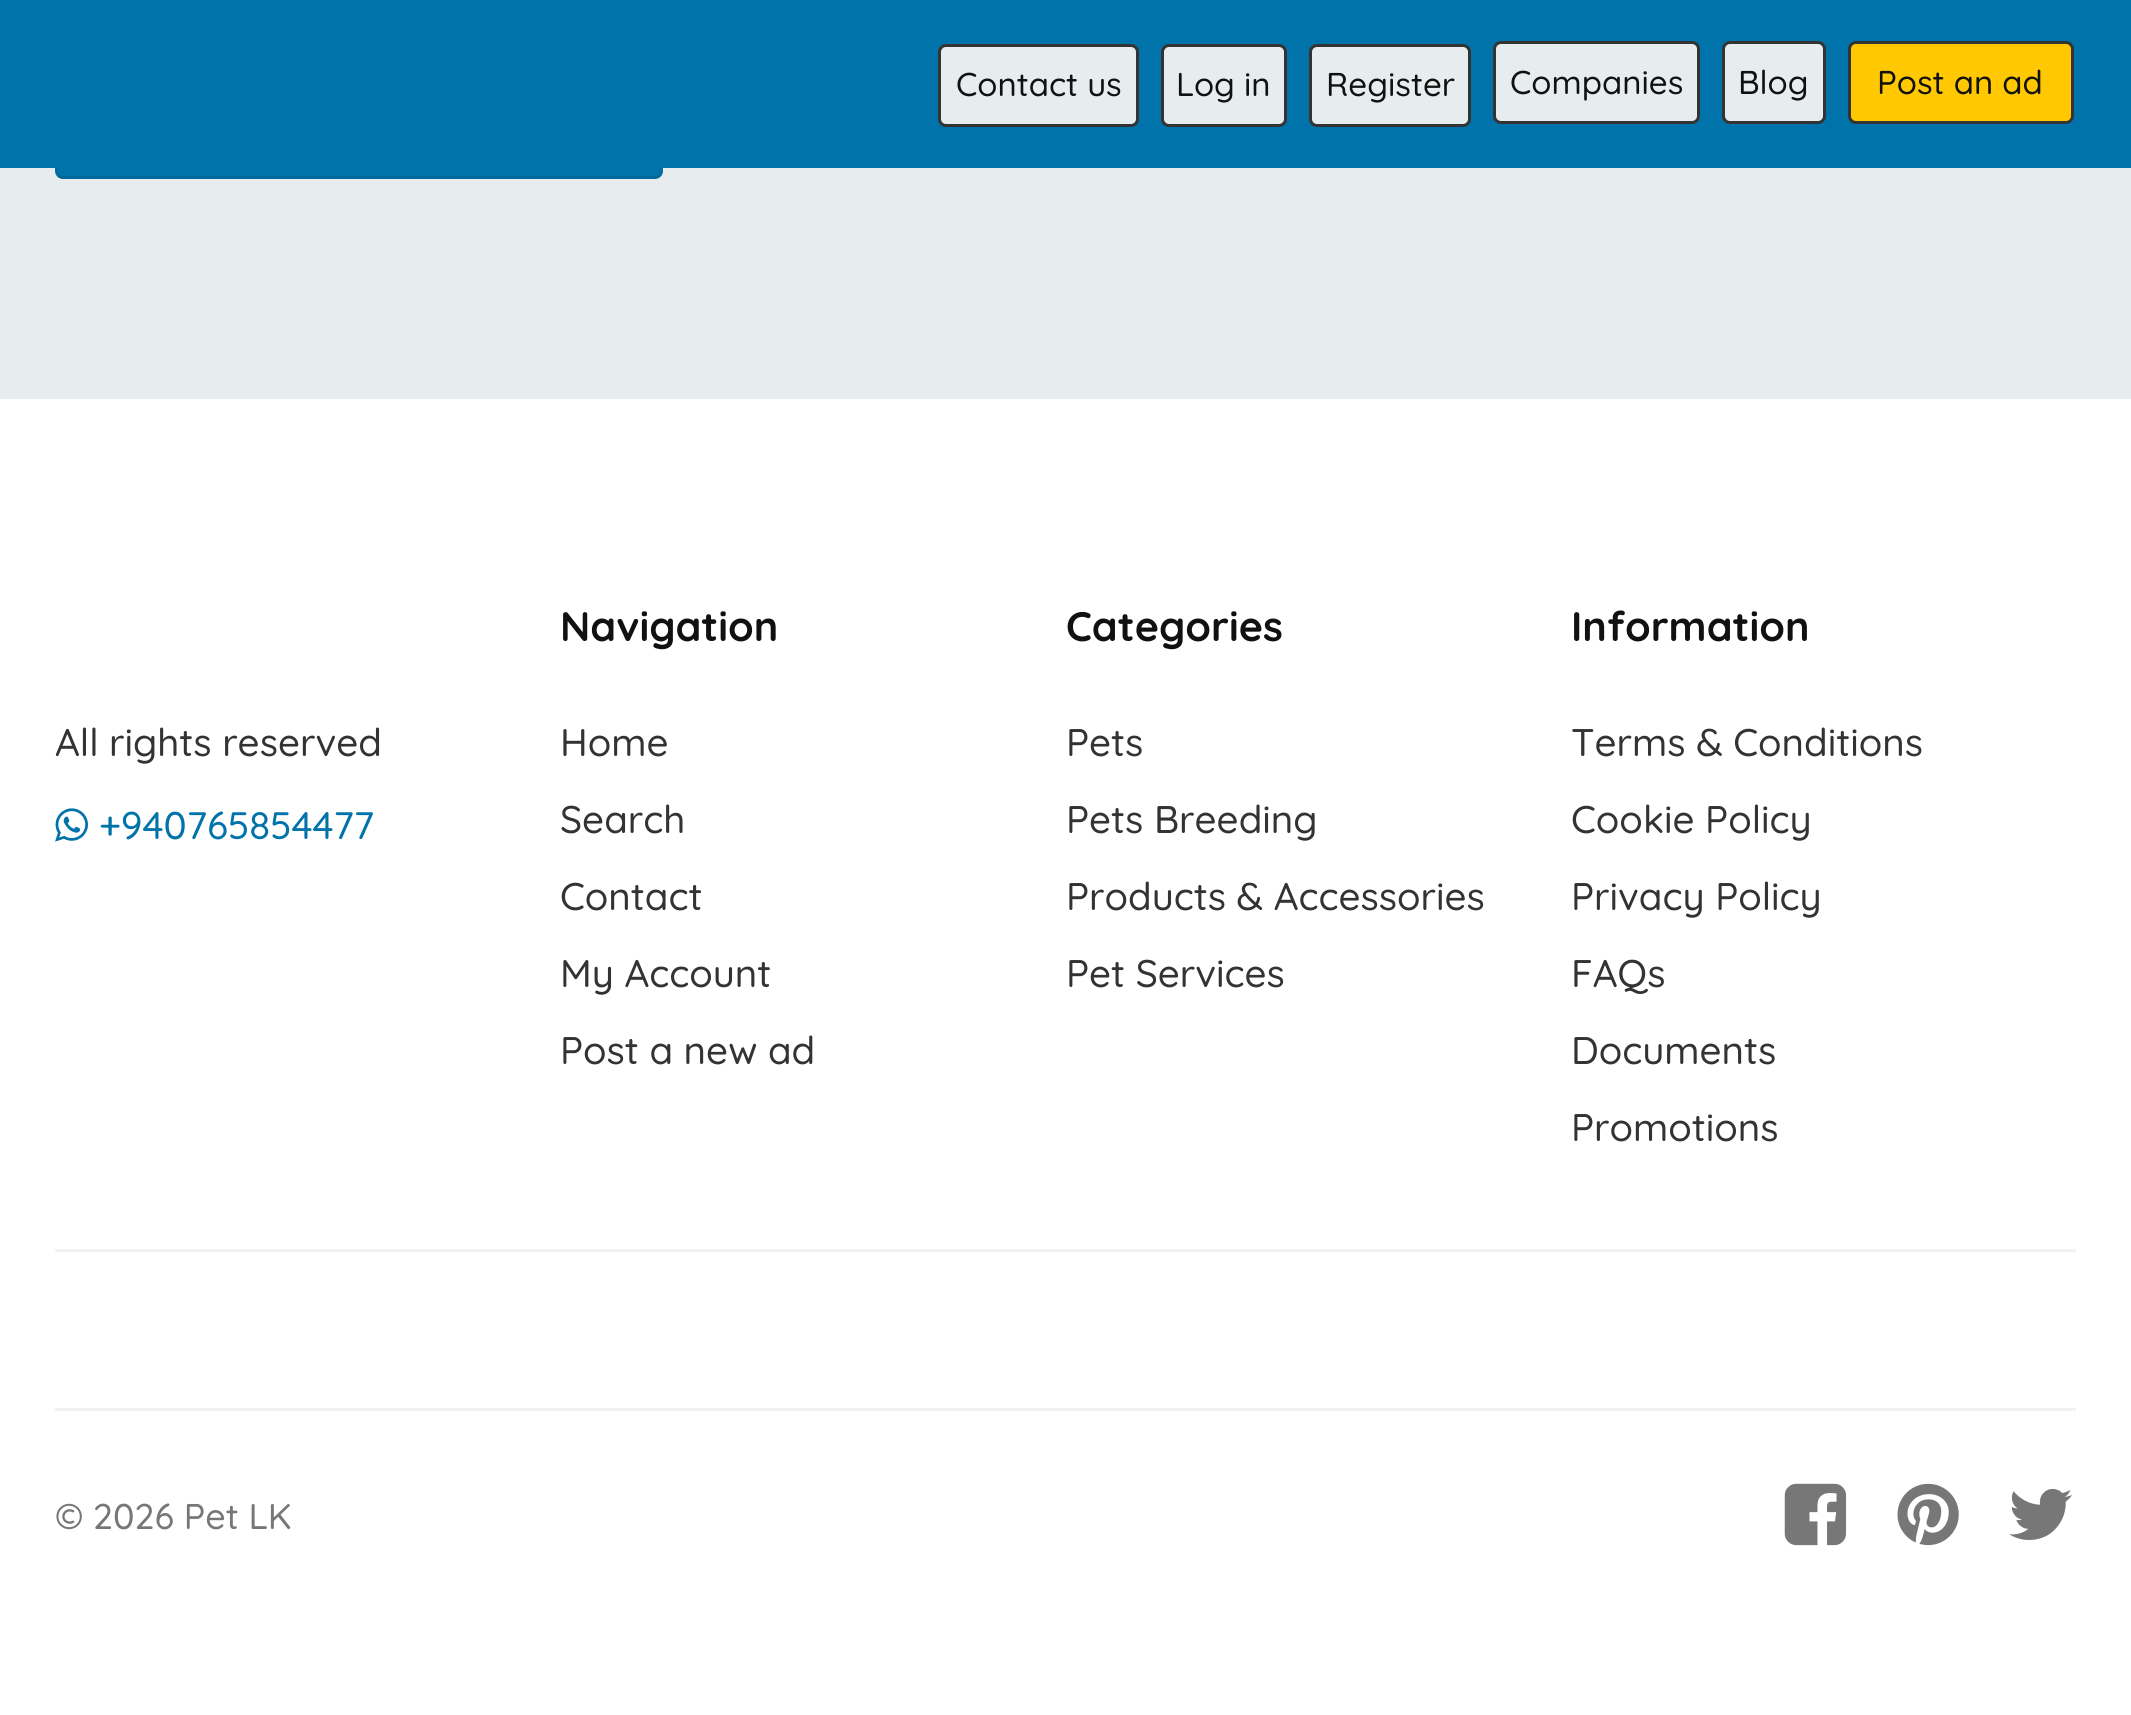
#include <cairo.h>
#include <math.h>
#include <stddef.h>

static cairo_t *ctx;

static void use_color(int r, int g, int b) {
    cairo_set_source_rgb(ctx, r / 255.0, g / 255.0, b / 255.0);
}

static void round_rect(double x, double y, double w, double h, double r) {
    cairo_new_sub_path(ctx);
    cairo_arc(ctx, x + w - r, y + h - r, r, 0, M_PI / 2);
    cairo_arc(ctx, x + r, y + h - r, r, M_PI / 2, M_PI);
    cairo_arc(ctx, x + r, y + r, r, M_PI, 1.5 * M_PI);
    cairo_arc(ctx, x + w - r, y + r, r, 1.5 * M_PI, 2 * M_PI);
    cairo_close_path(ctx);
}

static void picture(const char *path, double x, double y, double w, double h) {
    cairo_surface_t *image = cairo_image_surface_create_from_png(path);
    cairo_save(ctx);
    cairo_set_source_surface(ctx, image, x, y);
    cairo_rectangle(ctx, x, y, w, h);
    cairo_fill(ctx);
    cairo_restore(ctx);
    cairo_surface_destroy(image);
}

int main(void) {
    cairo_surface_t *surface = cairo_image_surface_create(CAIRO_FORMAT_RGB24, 2131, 1715);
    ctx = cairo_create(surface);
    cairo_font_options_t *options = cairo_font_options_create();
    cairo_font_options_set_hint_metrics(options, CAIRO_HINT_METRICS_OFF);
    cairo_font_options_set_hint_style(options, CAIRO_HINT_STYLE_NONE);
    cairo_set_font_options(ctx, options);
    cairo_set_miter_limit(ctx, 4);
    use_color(231, 237, 238);
    cairo_paint(ctx);
    use_color(0, 115, 170);
    round_rect(55, 80, 608, 99, 8);
    cairo_fill(ctx);
    cairo_new_path(ctx);
    cairo_move_to(ctx, 659.5, 175.5);
    cairo_curve_to(ctx, 658, 176.5, 656.5, 177.5, 654.5, 177.5);
    cairo_line_to(ctx, 63, 177.5);
    cairo_curve_to(ctx, 61.5, 177.5, 59.5, 176.5, 58.5, 175.5);
    cairo_set_source_rgba(ctx, 0, 0, 0, 0.1);
    cairo_set_line_width(ctx, 2.8);
    cairo_stroke(ctx);
    cairo_new_path(ctx);
    cairo_move_to(ctx, 58.5, 175.5);
    cairo_curve_to(ctx, 57, 174, 56.5, 172.5, 56.5, 170.5);
    cairo_line_to(ctx, 56.5, 88);
    cairo_curve_to(ctx, 56.5, 86, 57, 84.5, 58.5, 83);
    cairo_curve_to(ctx, 59.5, 82, 61.5, 81, 63, 81);
    cairo_line_to(ctx, 654.5, 81);
    cairo_curve_to(ctx, 656.5, 81, 658, 82, 659.5, 83);
    cairo_curve_to(ctx, 660.5, 84.5, 661.5, 86, 661.5, 88);
    cairo_line_to(ctx, 661.5, 170.5);
    cairo_curve_to(ctx, 661.5, 172.5, 660.5, 174, 659.5, 175.5);
    cairo_set_source_rgba(ctx, 0, 0, 0, 0.05);
    cairo_stroke(ctx);
    use_color(0, 115, 170);
    cairo_rectangle(ctx, 0, 0, 2131, 168);
    cairo_fill(ctx);
    use_color(231, 237, 238);
    round_rect(939.5, 45.5, 198, 80, 6.5);
    cairo_fill_preserve(ctx);
    use_color(51, 51, 51);
    cairo_set_line_width(ctx, 3);
    cairo_stroke(ctx);
    cairo_select_font_face(ctx, "Quicksand Medium", CAIRO_FONT_SLANT_NORMAL, CAIRO_FONT_WEIGHT_NORMAL);
    cairo_set_font_size(ctx, 33);
    use_color(17, 17, 17);
    cairo_move_to(ctx, 956, 96);
    cairo_show_text(ctx, "Contact us");
    use_color(231, 237, 238);
    round_rect(1162.5, 45.5, 123, 80, 6.5);
    cairo_fill_preserve(ctx);
    use_color(51, 51, 51);
    cairo_stroke(ctx);
    use_color(17, 17, 17);
    cairo_move_to(ctx, 1176, 96);
    cairo_show_text(ctx, "Log in");
    use_color(231, 237, 238);
    round_rect(1310.5, 45.5, 159, 80, 6.5);
    cairo_fill_preserve(ctx);
    use_color(51, 51, 51);
    cairo_stroke(ctx);
    use_color(17, 17, 17);
    cairo_move_to(ctx, 1326, 96);
    cairo_show_text(ctx, "Register");
    use_color(231, 237, 238);
    round_rect(1494.5, 42.5, 204, 80, 6.5);
    cairo_fill_preserve(ctx);
    use_color(51, 51, 51);
    cairo_stroke(ctx);
    use_color(17, 17, 17);
    cairo_move_to(ctx, 1510, 94);
    cairo_show_text(ctx, "Companies");
    use_color(231, 237, 238);
    round_rect(1723.5, 42.5, 101, 80, 6.5);
    cairo_fill_preserve(ctx);
    use_color(51, 51, 51);
    cairo_stroke(ctx);
    use_color(17, 17, 17);
    cairo_move_to(ctx, 1738, 94);
    cairo_show_text(ctx, "Blog");
    use_color(255, 200, 0);
    round_rect(1849.5, 42.5, 223, 80, 6.5);
    cairo_fill_preserve(ctx);
    use_color(51, 51, 51);
    cairo_stroke(ctx);
    use_color(17, 17, 17);
    cairo_move_to(ctx, 1877, 94);
    cairo_show_text(ctx, "Post an ad");
    use_color(255, 255, 255);
    cairo_rectangle(ctx, 0, 399, 2131, 1316);
    cairo_fill(ctx);
    cairo_set_font_size(ctx, 38.5);
    use_color(51, 51, 51);
    cairo_move_to(ctx, 55, 756);
    cairo_show_text(ctx, "All rights reserved");
    picture("img1.png", 55, 808, 33, 34);
    use_color(0, 115, 170);
    cairo_move_to(ctx, 99, 839);
    cairo_show_text(ctx, "+940765854477");
    cairo_select_font_face(ctx, "Quicksand", CAIRO_FONT_SLANT_NORMAL, CAIRO_FONT_WEIGHT_BOLD);
    cairo_set_font_size(ctx, 41.25);
    use_color(17, 17, 17);
    cairo_move_to(ctx, 560, 641);
    cairo_show_text(ctx, "Navigation");
    cairo_select_font_face(ctx, "Quicksand Medium", CAIRO_FONT_SLANT_NORMAL, CAIRO_FONT_WEIGHT_NORMAL);
    cairo_set_font_size(ctx, 38.5);
    use_color(51, 51, 51);
    cairo_move_to(ctx, 560, 756);
    cairo_show_text(ctx, "Home");
    cairo_move_to(ctx, 560, 833);
    cairo_show_text(ctx, "Search");
    cairo_move_to(ctx, 560, 910);
    cairo_show_text(ctx, "Contact");
    cairo_move_to(ctx, 560, 987);
    cairo_show_text(ctx, "My Account");
    cairo_move_to(ctx, 560, 1064);
    cairo_show_text(ctx, "Post a new ad");
    cairo_select_font_face(ctx, "Quicksand", CAIRO_FONT_SLANT_NORMAL, CAIRO_FONT_WEIGHT_BOLD);
    cairo_set_font_size(ctx, 41.25);
    use_color(17, 17, 17);
    cairo_move_to(ctx, 1066, 641);
    cairo_show_text(ctx, "Categories");
    cairo_select_font_face(ctx, "Quicksand Medium", CAIRO_FONT_SLANT_NORMAL, CAIRO_FONT_WEIGHT_NORMAL);
    cairo_set_font_size(ctx, 38.5);
    use_color(51, 51, 51);
    cairo_move_to(ctx, 1066, 756);
    cairo_show_text(ctx, "Pets");
    cairo_move_to(ctx, 1066, 833);
    cairo_show_text(ctx, "Pets Breeding");
    cairo_move_to(ctx, 1066, 910);
    cairo_show_text(ctx, "Products & Accessories");
    cairo_move_to(ctx, 1066, 987);
    cairo_show_text(ctx, "Pet Services");
    cairo_select_font_face(ctx, "Quicksand", CAIRO_FONT_SLANT_NORMAL, CAIRO_FONT_WEIGHT_BOLD);
    cairo_set_font_size(ctx, 41.25);
    use_color(17, 17, 17);
    cairo_move_to(ctx, 1571, 641);
    cairo_show_text(ctx, "Information");
    cairo_select_font_face(ctx, "Quicksand Medium", CAIRO_FONT_SLANT_NORMAL, CAIRO_FONT_WEIGHT_NORMAL);
    cairo_set_font_size(ctx, 38.5);
    use_color(51, 51, 51);
    cairo_move_to(ctx, 1571, 756);
    cairo_show_text(ctx, "Terms & Conditions");
    cairo_move_to(ctx, 1571, 833);
    cairo_show_text(ctx, "Cookie Policy");
    cairo_move_to(ctx, 1571, 910);
    cairo_show_text(ctx, "Privacy Policy");
    cairo_move_to(ctx, 1571, 987);
    cairo_show_text(ctx, "FAQs");
    cairo_move_to(ctx, 1571, 1064);
    cairo_show_text(ctx, "Documents");
    cairo_move_to(ctx, 1571, 1141);
    cairo_show_text(ctx, "Promotions");
    use_color(242, 242, 242);
    cairo_rectangle(ctx, 55, 1249, 2021, 3);
    cairo_fill(ctx);
    cairo_rectangle(ctx, 55, 1408, 2021, 3);
    cairo_fill(ctx);
    cairo_set_font_size(ctx, 35.75);
    use_color(119, 119, 119);
    cairo_move_to(ctx, 55, 1529);
    cairo_show_text(ctx, "© 2026 Pet LK");
    picture("img2.png", 1784, 1483, 63, 63);
    picture("img3.png", 1897, 1483, 62, 63);
    picture("img4.png", 2009, 1488, 63, 52);
    cairo_surface_write_to_png(surface, "result.png");
    cairo_font_options_destroy(options);
    cairo_destroy(ctx);
    cairo_surface_destroy(surface);
    return 0;
}
